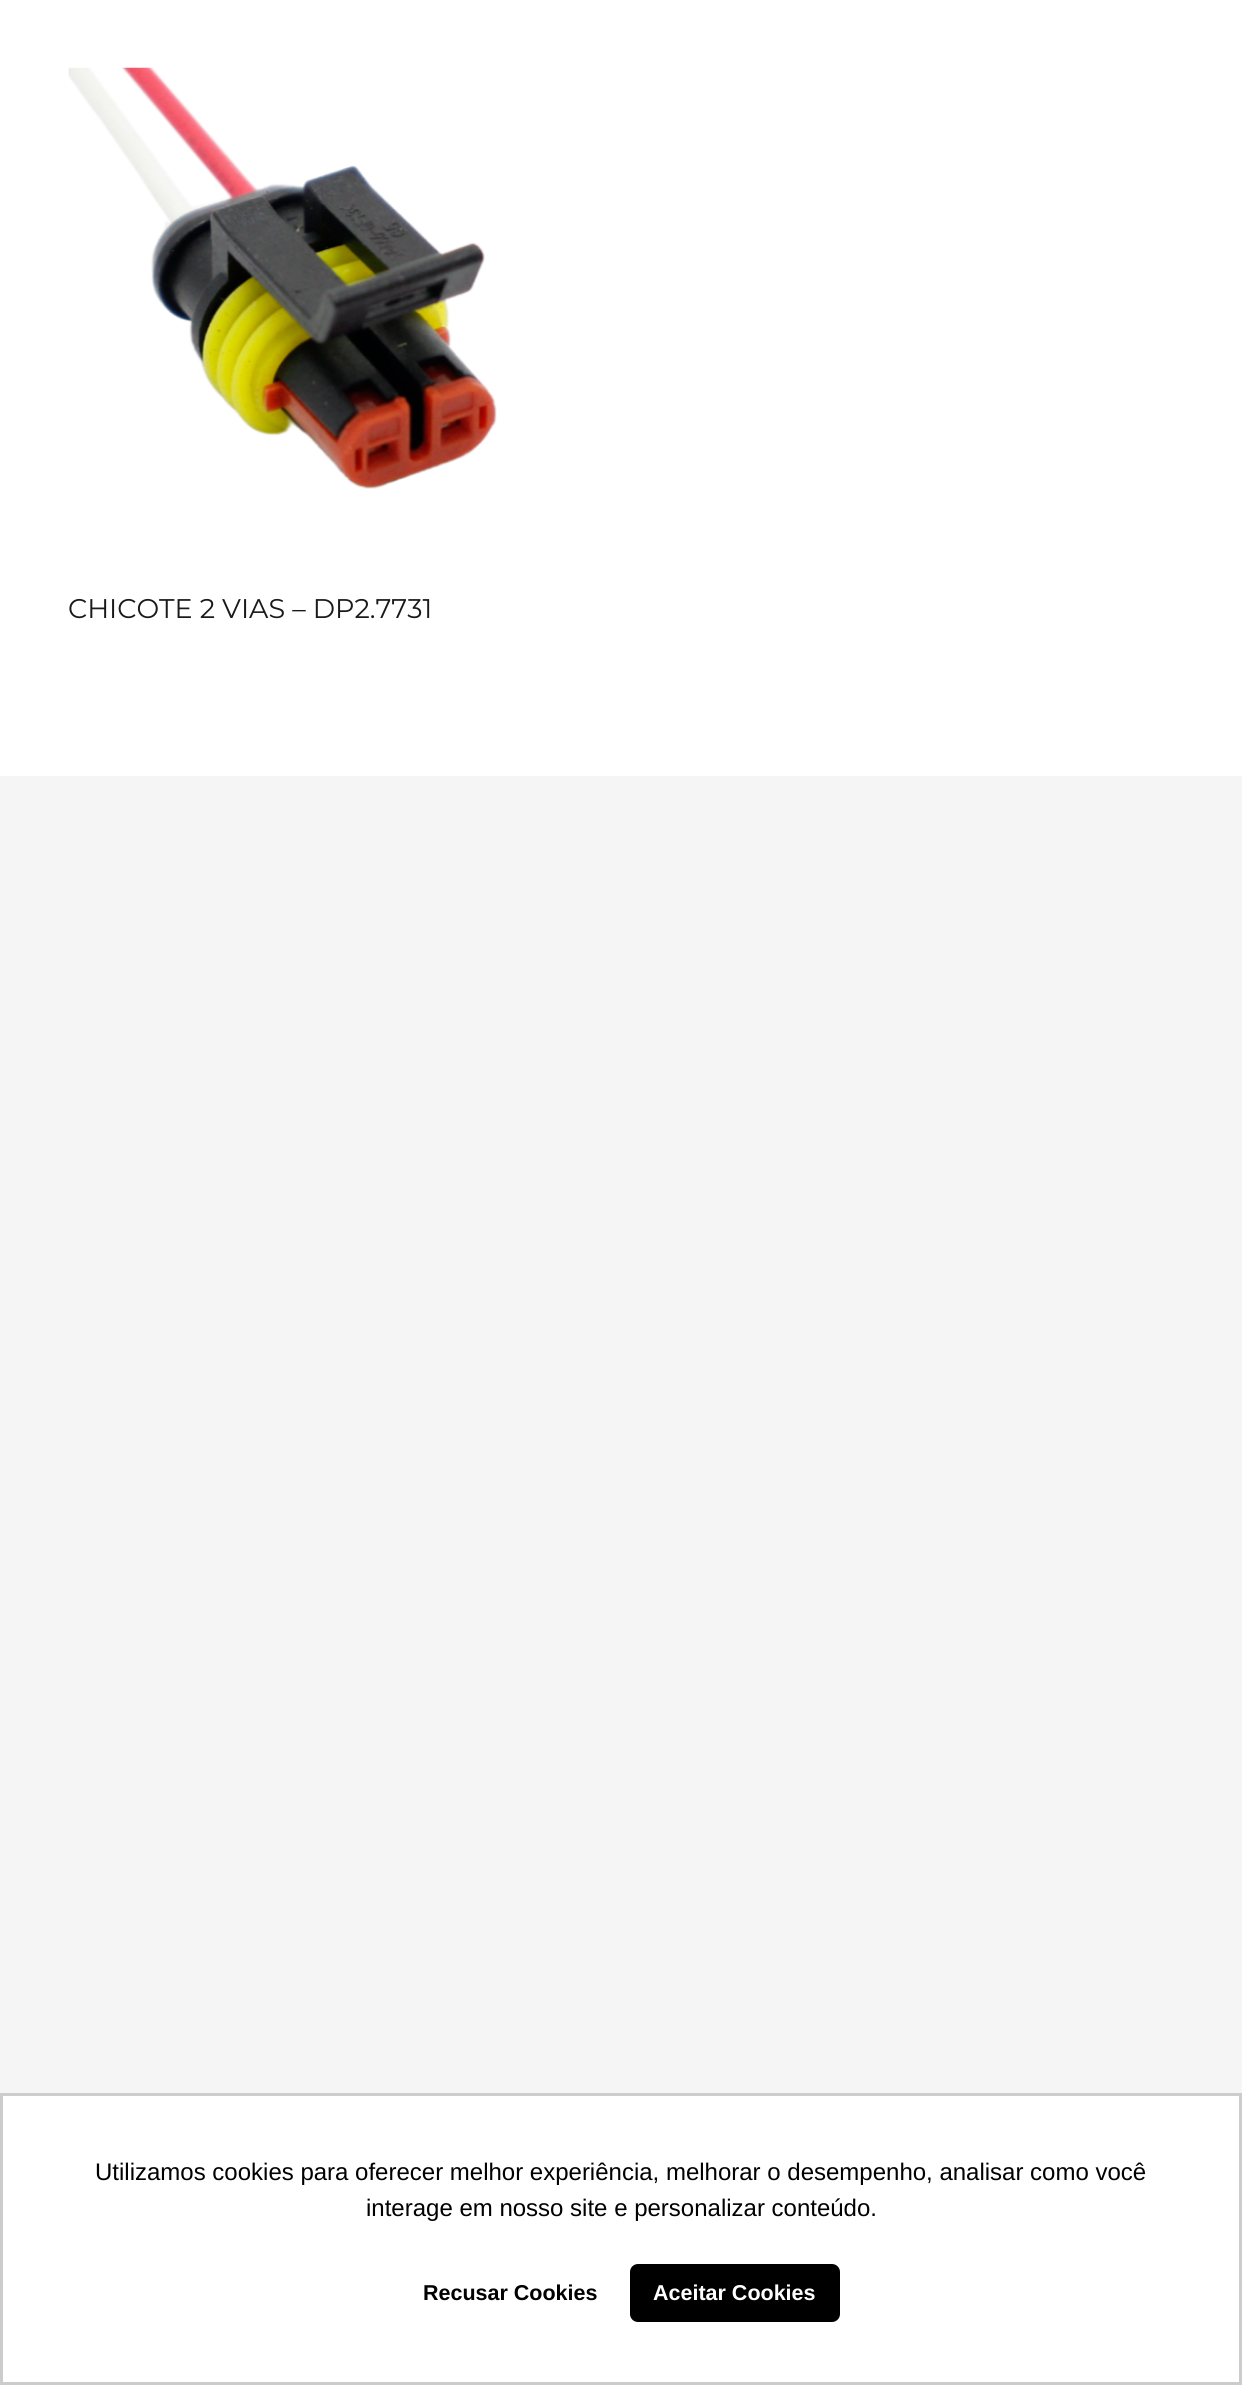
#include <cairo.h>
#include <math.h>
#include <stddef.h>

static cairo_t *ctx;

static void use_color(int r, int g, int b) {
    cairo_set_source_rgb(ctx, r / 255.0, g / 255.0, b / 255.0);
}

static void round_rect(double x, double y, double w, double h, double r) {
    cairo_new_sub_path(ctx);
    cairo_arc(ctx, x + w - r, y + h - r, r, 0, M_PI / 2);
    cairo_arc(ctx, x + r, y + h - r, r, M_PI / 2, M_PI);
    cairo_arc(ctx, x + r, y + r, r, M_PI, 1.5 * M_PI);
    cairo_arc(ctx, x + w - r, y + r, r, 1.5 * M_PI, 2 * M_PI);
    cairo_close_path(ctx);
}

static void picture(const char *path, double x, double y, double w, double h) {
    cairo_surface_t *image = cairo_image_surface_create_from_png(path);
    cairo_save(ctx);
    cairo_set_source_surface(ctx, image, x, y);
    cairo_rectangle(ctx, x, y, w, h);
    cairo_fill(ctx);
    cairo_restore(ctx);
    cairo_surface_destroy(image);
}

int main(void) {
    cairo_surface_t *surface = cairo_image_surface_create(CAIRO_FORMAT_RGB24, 1242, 2385);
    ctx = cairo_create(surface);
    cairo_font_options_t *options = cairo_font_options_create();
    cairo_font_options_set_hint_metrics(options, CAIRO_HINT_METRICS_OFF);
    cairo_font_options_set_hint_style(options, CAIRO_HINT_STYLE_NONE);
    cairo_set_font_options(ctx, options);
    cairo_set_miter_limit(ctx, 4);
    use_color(245, 245, 245);
    cairo_paint(ctx);
    use_color(255, 255, 255);
    cairo_rectangle(ctx, 0, 0, 1242, 776);
    cairo_fill(ctx);
    picture("img1.png", 68, 67, 429, 422);
    cairo_select_font_face(ctx, "Montserrat", CAIRO_FONT_SLANT_NORMAL, CAIRO_FONT_WEIGHT_NORMAL);
    cairo_set_font_size(ctx, 27);
    use_color(26, 26, 26);
    cairo_move_to(ctx, 68, 618);
    cairo_show_text(ctx, "CHICOTE 2 VIAS – DP2.7731");
    use_color(255, 255, 255);
    cairo_rectangle(ctx, 1.5, 2094.5, 1239, 289);
    cairo_fill_preserve(ctx);
    use_color(204, 204, 204);
    cairo_set_line_width(ctx, 3);
    cairo_stroke(ctx);
    cairo_select_font_face(ctx, "Liberation Sans", CAIRO_FONT_SLANT_NORMAL, CAIRO_FONT_WEIGHT_NORMAL);
    cairo_set_font_size(ctx, 24);
    use_color(0, 0, 0);
    cairo_move_to(ctx, 95, 2180);
    cairo_show_text(ctx, "Utilizamos cookies para oferecer melhor experiência, melhorar o desempenho, analisar como você");
    cairo_move_to(ctx, 366, 2216);
    cairo_show_text(ctx, "interage em nosso site e personalizar conteúdo.");
    cairo_select_font_face(ctx, "Liberation Sans", CAIRO_FONT_SLANT_NORMAL, CAIRO_FONT_WEIGHT_BOLD);
    cairo_set_font_size(ctx, 21.5);
    cairo_move_to(ctx, 423, 2300);
    cairo_show_text(ctx, "Recusar Cookies");
    round_rect(630, 2264, 210, 58, 8);
    cairo_fill(ctx);
    use_color(255, 255, 255);
    cairo_move_to(ctx, 653, 2300);
    cairo_show_text(ctx, "Aceitar Cookies");
    cairo_surface_write_to_png(surface, "result.png");
    cairo_font_options_destroy(options);
    cairo_destroy(ctx);
    cairo_surface_destroy(surface);
    return 0;
}
